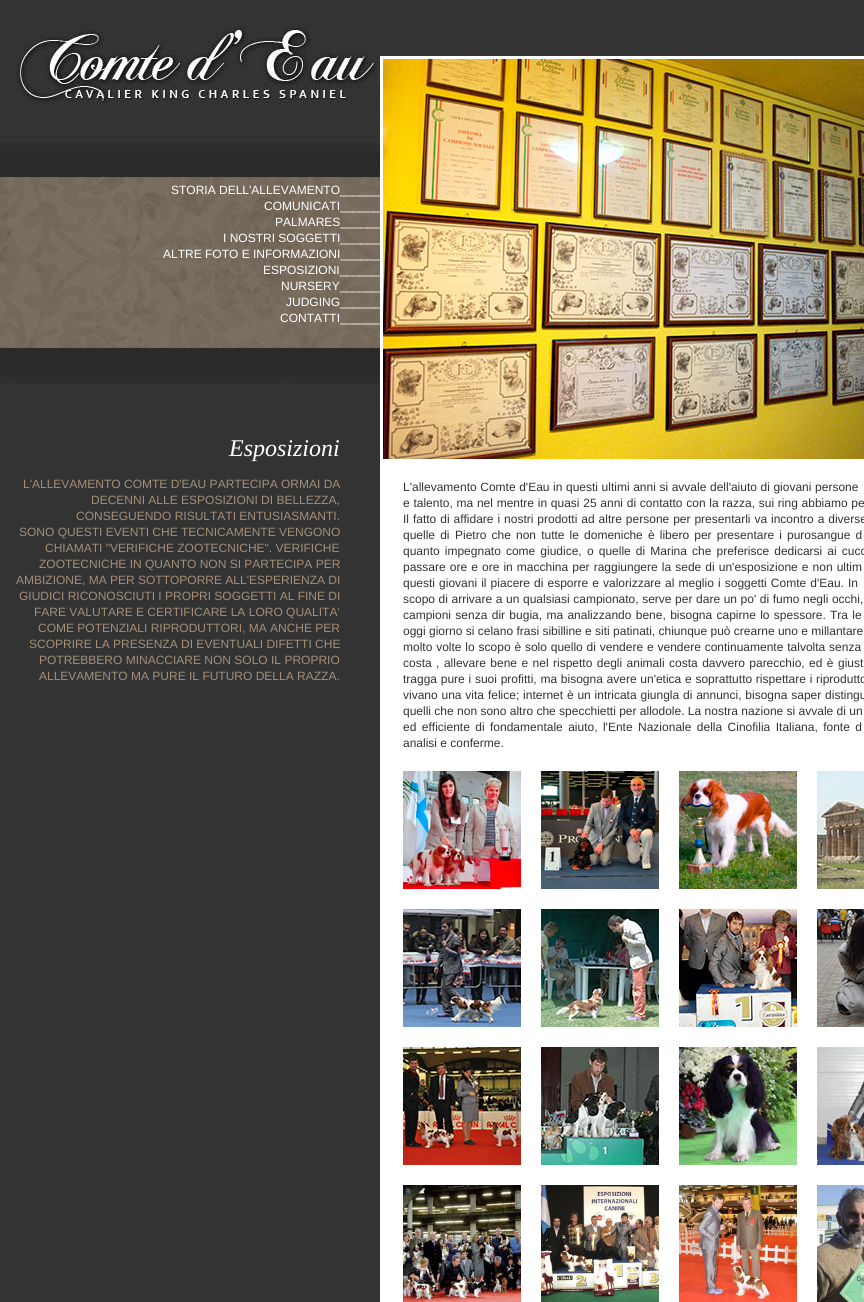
#include <cairo.h>
#include <math.h>
#include <stddef.h>

static cairo_t *ctx;

static void use_color(int r, int g, int b) {
    cairo_set_source_rgb(ctx, r / 255.0, g / 255.0, b / 255.0);
}

static void spaced_text(double x, double y, const char *s, double letter, double word) {
    cairo_move_to(ctx, x, y);
    while (*s) {
        char ch[5] = {0};
        int n = 0;
        do ch[n++] = *s++; while ((*s & 0xC0) == 0x80);
        cairo_show_text(ctx, ch);
        cairo_rel_move_to(ctx, letter + word * (*ch == ' '), 0);
    }
}

static void picture(const char *path, double x, double y, double w, double h) {
    cairo_surface_t *image = cairo_image_surface_create_from_png(path);
    cairo_save(ctx);
    cairo_set_source_surface(ctx, image, x, y);
    cairo_rectangle(ctx, x, y, w, h);
    cairo_fill(ctx);
    cairo_restore(ctx);
    cairo_surface_destroy(image);
}

int main(void) {
    cairo_surface_t *surface = cairo_image_surface_create(CAIRO_FORMAT_RGB24, 864, 1302);
    ctx = cairo_create(surface);
    cairo_font_options_t *options = cairo_font_options_create();
    cairo_font_options_set_hint_metrics(options, CAIRO_HINT_METRICS_OFF);
    cairo_font_options_set_hint_style(options, CAIRO_HINT_STYLE_NONE);
    cairo_set_font_options(ctx, options);
    cairo_set_miter_limit(ctx, 4);
    use_color(51, 51, 51);
    cairo_paint(ctx);
    picture("img1.png", 0, 143, 380, 241);
    picture("img2.png", 16, 25, 362, 81);
    cairo_select_font_face(ctx, "Liberation Sans", CAIRO_FONT_SLANT_NORMAL, CAIRO_FONT_WEIGHT_NORMAL);
    cairo_set_font_size(ctx, 12);
    use_color(255, 255, 255);
    cairo_move_to(ctx, 171, 194);
    cairo_show_text(ctx, "STORIA DELL'ALLEVAMENTO______");
    cairo_move_to(ctx, 264, 210);
    cairo_show_text(ctx, "COMUNICATI______");
    cairo_move_to(ctx, 275, 226);
    cairo_show_text(ctx, "PALMARES______");
    cairo_move_to(ctx, 223, 242);
    cairo_show_text(ctx, "I NOSTRI SOGGETTI______");
    cairo_move_to(ctx, 163, 258);
    cairo_show_text(ctx, "ALTRE FOTO E INFORMAZIONI______");
    cairo_move_to(ctx, 263, 274);
    cairo_show_text(ctx, "ESPOSIZIONI______");
    cairo_move_to(ctx, 281, 290);
    cairo_show_text(ctx, "NURSERY______");
    cairo_move_to(ctx, 286, 306);
    cairo_show_text(ctx, "JUDGING______");
    cairo_move_to(ctx, 280, 322);
    cairo_show_text(ctx, "CONTATTI______");
    cairo_select_font_face(ctx, "Liberation Serif", CAIRO_FONT_SLANT_ITALIC, CAIRO_FONT_WEIGHT_NORMAL);
    cairo_set_font_size(ctx, 24);
    cairo_move_to(ctx, 229, 456);
    cairo_show_text(ctx, "Esposizioni");
    cairo_select_font_face(ctx, "Liberation Sans", CAIRO_FONT_SLANT_NORMAL, CAIRO_FONT_WEIGHT_NORMAL);
    cairo_set_font_size(ctx, 12);
    use_color(164, 142, 119);
    cairo_move_to(ctx, 23, 488);
    cairo_show_text(ctx, "L'ALLEVAMENTO COMTE D'EAU PARTECIPA ORMAI DA");
    cairo_move_to(ctx, 91, 504);
    cairo_show_text(ctx, "DECENNI ALLE ESPOSIZIONI DI BELLEZZA,");
    cairo_move_to(ctx, 76, 520);
    cairo_show_text(ctx, "CONSEGUENDO RISULTATI ENTUSIASMANTI.");
    cairo_move_to(ctx, 19, 536);
    cairo_show_text(ctx, "SONO QUESTI EVENTI CHE TECNICAMENTE VENGONO");
    cairo_move_to(ctx, 45, 552);
    cairo_show_text(ctx, "CHIAMATI \"VERIFICHE ZOOTECNICHE\". VERIFICHE");
    cairo_move_to(ctx, 39, 568);
    cairo_show_text(ctx, "ZOOTECNICHE IN QUANTO NON SI PARTECIPA PER");
    cairo_move_to(ctx, 16, 584);
    cairo_show_text(ctx, "AMBIZIONE, MA PER SOTTOPORRE ALL'ESPERIENZA DI");
    cairo_move_to(ctx, 19, 600);
    cairo_show_text(ctx, "GIUDICI RICONOSCIUTI I PROPRI SOGGETTI AL FINE DI");
    cairo_move_to(ctx, 34, 616);
    cairo_show_text(ctx, "FARE VALUTARE E CERTIFICARE LA LORO QUALITA'");
    cairo_move_to(ctx, 38, 632);
    cairo_show_text(ctx, "COME POTENZIALI RIPRODUTTORI, MA ANCHE PER");
    cairo_move_to(ctx, 29, 648);
    cairo_show_text(ctx, "SCOPRIRE LA PRESENZA DI EVENTUALI DIFETTI CHE");
    cairo_move_to(ctx, 39, 664);
    cairo_show_text(ctx, "POTREBBERO MINACCIARE NON SOLO IL PROPRIO");
    cairo_move_to(ctx, 39, 680);
    cairo_show_text(ctx, "ALLEVAMENTO MA PURE IL FUTURO DELLA RAZZA.");
    use_color(255, 255, 255);
    cairo_rectangle(ctx, 380, 56, 484, 1246);
    cairo_fill(ctx);
    picture("img3.png", 383, 59, 481, 400);
    use_color(51, 51, 51);
    spaced_text(403, 491, "L'allevamento Comte d'Eau in questi ultimi anni si avvale dell'aiuto di giovani persone", 0, 0.25);
    spaced_text(403, 507, "e talento, ma nel mentre in quasi 25 anni di contatto con la razza, sui ring abbiamo pe", 0, 0.4);
    spaced_text(403, 523, "Il fatto di affidare i nostri prodotti ad altre persone per presentarli va incontro a diverse", 0, 0.6);
    spaced_text(403, 539, "quelle di", 0, 1.8);
    spaced_text(455, 539, "Pietro che non tutte le domeniche è libero per presentare i purosangue d", 0, 1.8);
    spaced_text(403, 555, "quanto impegnato come giudice,", 0, 1.75);
    spaced_text(587, 555, "o quelle di Marina che preferisce dedicarsi ai cucc", 0, 1.75);
    spaced_text(403, 571, "passare ore e ore in macchina per raggiungere la sede di un'esposizione e non ultim", 0, 0.75);
    spaced_text(403, 587, "questi giovani il piacere di esporre e valorizzare al meglio i soggetti Comte d'Eau.", 0, 0.75);
    spaced_text(848, 587, "In", 0, 0.75);
    spaced_text(403, 603, "scopo di arrivare a un qualsiasi campionato, serve per dare un po' di fumo negli occhi,", 0, 0.25);
    spaced_text(403, 619, "campioni senza dir bugia, ma analizzando bene, bisogna capirne lo spessore.", 0, 1);
    spaced_text(830, 619, "Tra le", 0, 1);
    cairo_move_to(ctx, 403, 635);
    cairo_show_text(ctx, "oggi giorno si celano frasi sibilline e siti patinati, chiunque può crearne uno e millantare");
    spaced_text(403, 651, "molto volte lo scopo è solo quello di vendere e vendere continuamente talvolta senza", 0, 0.5);
    spaced_text(403, 667, "costa , allevare bene e nel rispetto degli animali costa davvero parecchio, ed è giust", 0, 1.1);
    spaced_text(403, 683, "tragga pure i suoi profitti, ma bisogna avere un'etica e soprattutto rispettare i riprodutto", 0, 0.4);
    spaced_text(403, 699, "vivano una vita felice; internet è un intricata giungla di annunci, bisogna saper distingu", 0, 0.5);
    cairo_move_to(ctx, 403, 715);
    cairo_show_text(ctx, "quelli che non sono altro che specchietti per allodole. La nostra nazione si avvale di un");
    spaced_text(403, 731, "ed efficiente di fondamentale aiuto, l'Ente Nazionale della Cinofilia Italiana, fonte d", 0, 2.1);
    cairo_move_to(ctx, 403, 747);
    cairo_show_text(ctx, "analisi e conferme.");
    picture("img4.png", 403, 771, 118, 118);
    picture("img5.png", 541, 771, 118, 118);
    picture("img6.png", 679, 771, 118, 118);
    picture("img7.png", 817, 771, 47, 118);
    picture("img8.png", 403, 909, 118, 118);
    picture("img9.png", 541, 909, 118, 118);
    picture("img10.png", 679, 909, 118, 118);
    picture("img11.png", 817, 909, 47, 118);
    picture("img12.png", 403, 1047, 118, 118);
    picture("img13.png", 541, 1047, 118, 118);
    picture("img14.png", 679, 1047, 118, 118);
    picture("img15.png", 817, 1047, 47, 118);
    picture("img16.png", 403, 1185, 118, 117);
    picture("img17.png", 541, 1185, 118, 117);
    picture("img18.png", 679, 1185, 118, 117);
    picture("img19.png", 817, 1185, 47, 117);
    cairo_surface_write_to_png(surface, "result.png");
    cairo_font_options_destroy(options);
    cairo_destroy(ctx);
    cairo_surface_destroy(surface);
    return 0;
}
